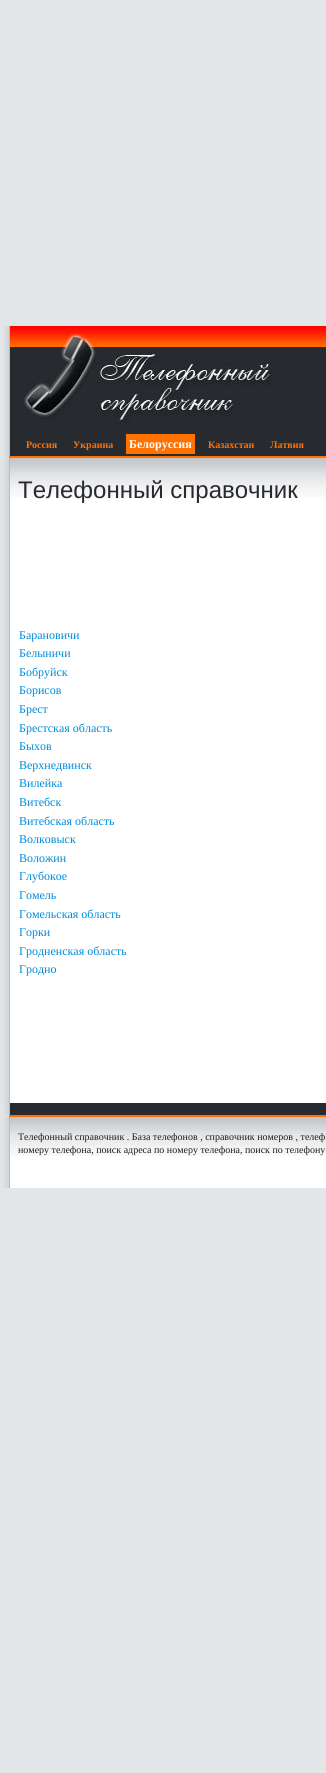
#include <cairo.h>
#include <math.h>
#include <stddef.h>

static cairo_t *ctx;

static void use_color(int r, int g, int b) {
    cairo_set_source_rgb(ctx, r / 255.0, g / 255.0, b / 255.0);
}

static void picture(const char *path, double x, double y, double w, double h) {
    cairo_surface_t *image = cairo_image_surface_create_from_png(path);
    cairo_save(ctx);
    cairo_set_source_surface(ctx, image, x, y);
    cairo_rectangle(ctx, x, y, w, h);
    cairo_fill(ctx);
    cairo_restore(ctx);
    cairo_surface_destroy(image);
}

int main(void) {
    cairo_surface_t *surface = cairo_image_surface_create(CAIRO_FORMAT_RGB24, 326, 1773);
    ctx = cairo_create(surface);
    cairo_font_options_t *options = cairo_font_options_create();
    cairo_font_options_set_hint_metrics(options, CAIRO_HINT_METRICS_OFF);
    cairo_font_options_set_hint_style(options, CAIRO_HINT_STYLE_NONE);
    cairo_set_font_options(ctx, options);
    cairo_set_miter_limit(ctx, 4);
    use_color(227, 230, 233);
    cairo_paint(ctx);
    picture("img1.png", 3, 326, 7, 21);
    picture("img2.png", 10, 326, 295, 21);
    picture("img3.png", 58, 333, 40, 14);
    picture("img4.png", 305, 326, 21, 21);
    picture("img5.png", 3, 347, 7, 80);
    use_color(39, 42, 46);
    cairo_rectangle(ctx, 10, 347, 316, 109);
    cairo_fill(ctx);
    picture("img6.png", 24, 347, 250, 78);
    picture("img7.png", 3, 427, 7, 30);
    use_color(255, 114, 2);
    cairo_rectangle(ctx, 9, 456, 317, 2);
    cairo_fill(ctx);
    cairo_select_font_face(ctx, "Liberation Serif", CAIRO_FONT_SLANT_NORMAL, CAIRO_FONT_WEIGHT_BOLD);
    cairo_set_font_size(ctx, 10);
    cairo_move_to(ctx, 26, 448);
    cairo_show_text(ctx, "Россия");
    cairo_move_to(ctx, 73, 448);
    cairo_show_text(ctx, "Украина");
    cairo_rectangle(ctx, 126, 434, 69, 20);
    cairo_fill(ctx);
    cairo_set_font_size(ctx, 12);
    use_color(255, 255, 255);
    cairo_move_to(ctx, 129, 448);
    cairo_show_text(ctx, "Белоруссия");
    cairo_set_font_size(ctx, 10);
    use_color(255, 114, 2);
    cairo_move_to(ctx, 208, 448);
    cairo_show_text(ctx, "Казахстан");
    cairo_move_to(ctx, 270, 448);
    cairo_show_text(ctx, "Латвия");
    use_color(255, 255, 255);
    cairo_rectangle(ctx, 10, 497, 316, 606);
    cairo_fill(ctx);
    picture("img8.png", 10, 458, 316, 39);
    picture("img9.png", 0, 458, 10, 645);
    cairo_select_font_face(ctx, "Liberation Sans", CAIRO_FONT_SLANT_NORMAL, CAIRO_FONT_WEIGHT_NORMAL);
    cairo_set_font_size(ctx, 24);
    use_color(39, 42, 46);
    cairo_move_to(ctx, 18, 498);
    cairo_show_text(ctx, "Телефонный справочник");
    cairo_select_font_face(ctx, "Liberation Serif", CAIRO_FONT_SLANT_NORMAL, CAIRO_FONT_WEIGHT_NORMAL);
    cairo_set_font_size(ctx, 12);
    use_color(0, 139, 218);
    cairo_move_to(ctx, 19, 639);
    cairo_show_text(ctx, "Барановичи");
    cairo_move_to(ctx, 19, 657);
    cairo_show_text(ctx, "Белыничи");
    cairo_move_to(ctx, 19, 676);
    cairo_show_text(ctx, "Бобруйск");
    cairo_move_to(ctx, 19, 694);
    cairo_show_text(ctx, "Борисов");
    cairo_move_to(ctx, 19, 713);
    cairo_show_text(ctx, "Брест");
    cairo_move_to(ctx, 19, 732);
    cairo_show_text(ctx, "Брестская область");
    cairo_move_to(ctx, 19, 750);
    cairo_show_text(ctx, "Быхов");
    cairo_move_to(ctx, 19, 769);
    cairo_show_text(ctx, "Верхнедвинск");
    cairo_move_to(ctx, 19, 787);
    cairo_show_text(ctx, "Вилейка");
    cairo_move_to(ctx, 19, 806);
    cairo_show_text(ctx, "Витебск");
    cairo_move_to(ctx, 19, 825);
    cairo_show_text(ctx, "Витебская область");
    cairo_move_to(ctx, 19, 843);
    cairo_show_text(ctx, "Волковыск");
    cairo_move_to(ctx, 19, 862);
    cairo_show_text(ctx, "Воложин");
    cairo_move_to(ctx, 19, 880);
    cairo_show_text(ctx, "Глубокое");
    cairo_move_to(ctx, 19, 899);
    cairo_show_text(ctx, "Гомель");
    cairo_move_to(ctx, 19, 918);
    cairo_show_text(ctx, "Гомельская область");
    cairo_move_to(ctx, 19, 936);
    cairo_show_text(ctx, "Горки");
    cairo_move_to(ctx, 19, 955);
    cairo_show_text(ctx, "Гродненская область");
    cairo_move_to(ctx, 19, 973);
    cairo_show_text(ctx, "Гродно");
    picture("img10.png", 3, 1103, 7, 13);
    use_color(39, 42, 46);
    cairo_rectangle(ctx, 10, 1103, 316, 12);
    cairo_fill(ctx);
    use_color(255, 114, 2);
    cairo_rectangle(ctx, 9, 1115, 317, 2);
    cairo_fill(ctx);
    use_color(255, 255, 255);
    cairo_rectangle(ctx, 10, 1156, 316, 32);
    cairo_fill(ctx);
    picture("img8.png", 10, 1117, 316, 39);
    picture("img11.png", 0, 1117, 10, 71);
    cairo_set_font_size(ctx, 10);
    use_color(29, 29, 29);
    cairo_move_to(ctx, 18, 1140);
    cairo_show_text(ctx, "Телефонный справочник . База телефонов , cправочник номеров , телеф");
    cairo_move_to(ctx, 18, 1153);
    cairo_show_text(ctx, "номеру телефона, поиск адреса по номеру телефона, поиск по телефону");
    cairo_surface_write_to_png(surface, "result.png");
    cairo_font_options_destroy(options);
    cairo_destroy(ctx);
    cairo_surface_destroy(surface);
    return 0;
}
